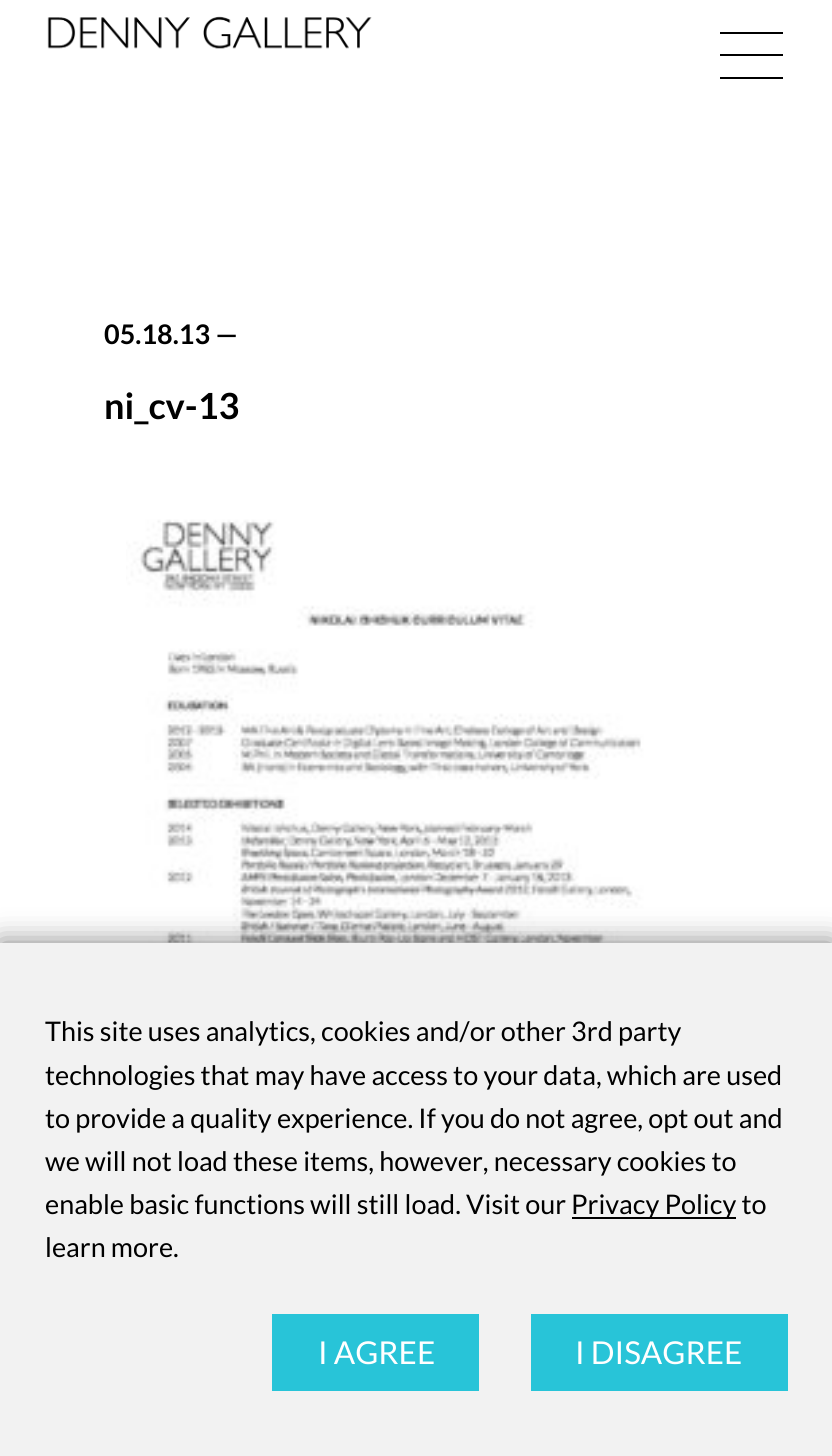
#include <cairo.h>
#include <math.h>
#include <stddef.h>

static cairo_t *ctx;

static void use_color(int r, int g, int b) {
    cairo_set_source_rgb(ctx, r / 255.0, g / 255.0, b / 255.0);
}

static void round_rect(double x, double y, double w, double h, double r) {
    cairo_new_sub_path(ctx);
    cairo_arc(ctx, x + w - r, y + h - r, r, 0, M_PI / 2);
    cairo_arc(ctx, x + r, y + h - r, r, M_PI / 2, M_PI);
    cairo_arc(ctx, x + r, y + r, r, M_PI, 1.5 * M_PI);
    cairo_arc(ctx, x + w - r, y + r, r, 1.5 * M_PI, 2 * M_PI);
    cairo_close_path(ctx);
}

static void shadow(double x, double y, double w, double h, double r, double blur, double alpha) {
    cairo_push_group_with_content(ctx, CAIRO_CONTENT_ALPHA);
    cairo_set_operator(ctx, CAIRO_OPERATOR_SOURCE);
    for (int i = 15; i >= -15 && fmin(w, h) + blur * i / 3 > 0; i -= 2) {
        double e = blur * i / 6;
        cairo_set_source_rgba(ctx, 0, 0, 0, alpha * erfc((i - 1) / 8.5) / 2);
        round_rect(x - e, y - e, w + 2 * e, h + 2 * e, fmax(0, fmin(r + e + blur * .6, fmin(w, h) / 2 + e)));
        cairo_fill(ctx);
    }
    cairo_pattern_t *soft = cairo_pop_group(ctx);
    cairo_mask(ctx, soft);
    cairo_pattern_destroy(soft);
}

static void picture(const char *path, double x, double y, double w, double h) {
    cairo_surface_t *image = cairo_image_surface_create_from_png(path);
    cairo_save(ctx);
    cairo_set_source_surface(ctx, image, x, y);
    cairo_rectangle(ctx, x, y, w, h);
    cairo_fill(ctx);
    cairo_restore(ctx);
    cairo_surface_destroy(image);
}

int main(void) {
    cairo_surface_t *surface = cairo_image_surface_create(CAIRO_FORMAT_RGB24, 832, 1456);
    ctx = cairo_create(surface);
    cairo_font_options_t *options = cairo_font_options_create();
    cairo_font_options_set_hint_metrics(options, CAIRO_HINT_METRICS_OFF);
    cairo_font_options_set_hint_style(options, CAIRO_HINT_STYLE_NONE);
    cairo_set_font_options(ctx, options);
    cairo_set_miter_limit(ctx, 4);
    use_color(255, 255, 255);
    cairo_paint(ctx);
    picture("img1.png", 47, 16, 325, 33);
    use_color(0, 0, 0);
    cairo_rectangle(ctx, 720, 54, 63, 2);
    cairo_fill(ctx);
    cairo_rectangle(ctx, 720, 32, 63, 2);
    cairo_fill(ctx);
    cairo_rectangle(ctx, 720, 77, 63, 2);
    cairo_fill(ctx);
    cairo_select_font_face(ctx, "Lato", CAIRO_FONT_SLANT_NORMAL, CAIRO_FONT_WEIGHT_BOLD);
    cairo_set_font_size(ctx, 27);
    cairo_move_to(ctx, 104, 344);
    cairo_show_text(ctx, "05.18.13 —");
    cairo_set_font_size(ctx, 36);
    cairo_move_to(ctx, 104, 419);
    cairo_show_text(ctx, "ni_cv-13");
    picture("img2.png", 126, 519, 539, 424);
    use_color(0, 0, 0);
    shadow(0, 943, 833, 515, 0, 14.5, 0.5);
    use_color(242, 242, 242);
    cairo_rectangle(ctx, 0, 943, 832, 513);
    cairo_fill(ctx);
    cairo_select_font_face(ctx, "Lato", CAIRO_FONT_SLANT_NORMAL, CAIRO_FONT_WEIGHT_NORMAL);
    cairo_set_font_size(ctx, 27);
    use_color(0, 0, 0);
    cairo_move_to(ctx, 45, 1041);
    cairo_show_text(ctx, "This site uses analytics, cookies and/or other 3rd party");
    cairo_move_to(ctx, 45, 1085);
    cairo_show_text(ctx, "technologies that may have access to your data, which are used");
    cairo_move_to(ctx, 45, 1128);
    cairo_show_text(ctx, "to provide a quality experience. If you do not agree, opt out and");
    cairo_move_to(ctx, 45, 1171);
    cairo_show_text(ctx, "we will not load these items, however, necessary cookies to");
    cairo_move_to(ctx, 45, 1214);
    cairo_show_text(ctx, "enable basic functions will still load. Visit our");
    cairo_rectangle(ctx, 572, 1217, 164, 2);
    cairo_fill(ctx);
    cairo_move_to(ctx, 571, 1214);
    cairo_show_text(ctx, "Privacy Policy to");
    cairo_move_to(ctx, 45, 1257);
    cairo_show_text(ctx, "learn more.");
    use_color(40, 196, 216);
    cairo_rectangle(ctx, 272, 1314, 207, 77);
    cairo_fill(ctx);
    cairo_set_font_size(ctx, 31.5);
    use_color(255, 255, 255);
    cairo_move_to(ctx, 318, 1364);
    cairo_show_text(ctx, "I AGREE");
    use_color(40, 196, 216);
    cairo_rectangle(ctx, 531, 1314, 257, 77);
    cairo_fill(ctx);
    use_color(255, 255, 255);
    cairo_move_to(ctx, 575, 1364);
    cairo_show_text(ctx, "I DISAGREE");
    cairo_surface_write_to_png(surface, "result.png");
    cairo_font_options_destroy(options);
    cairo_destroy(ctx);
    cairo_surface_destroy(surface);
    return 0;
}
